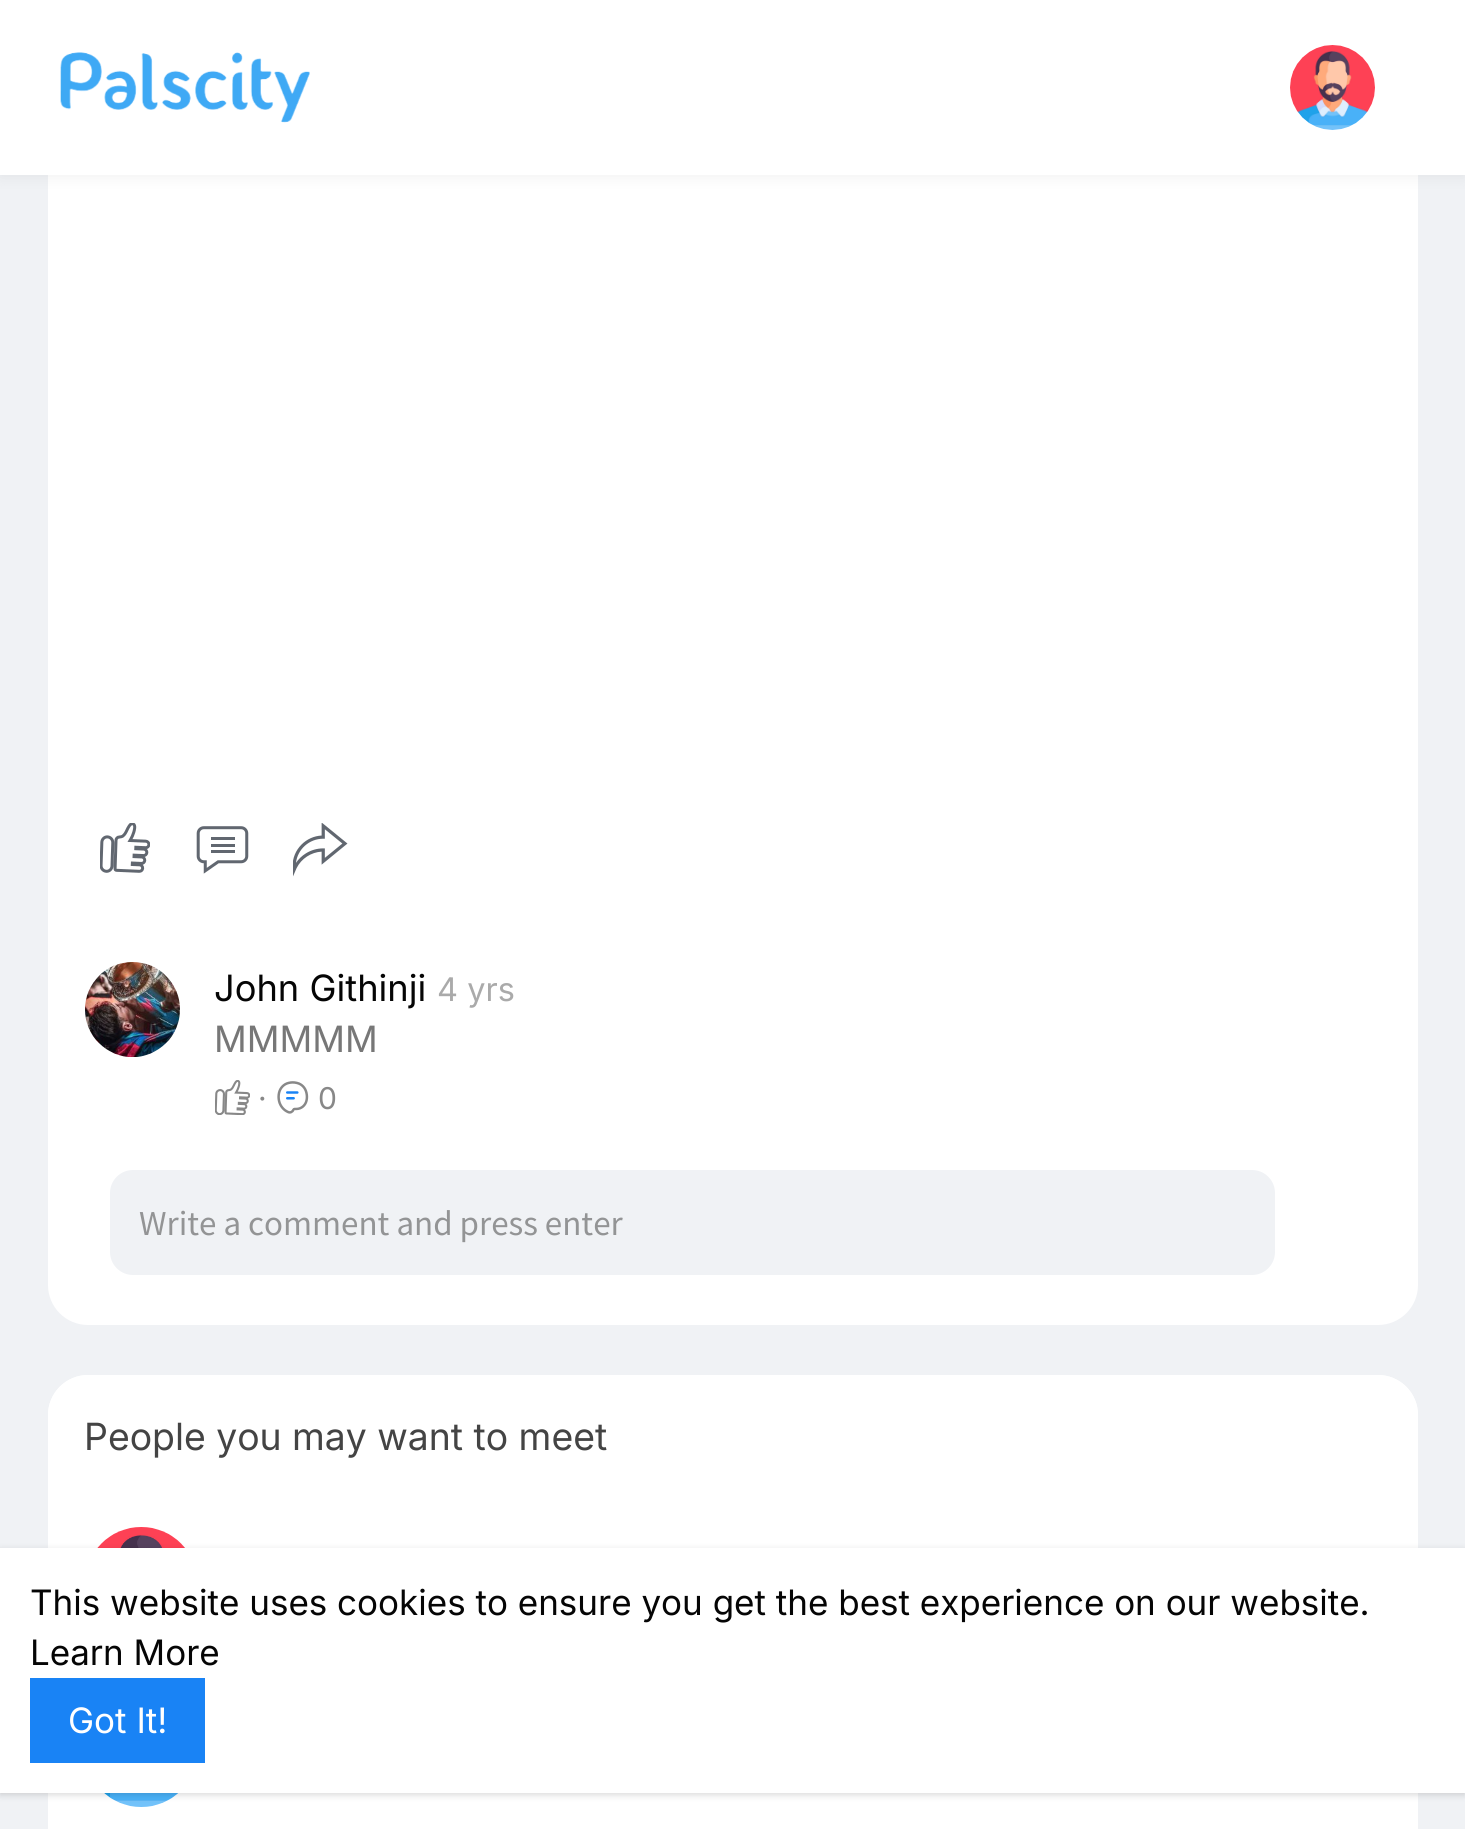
#include <cairo.h>
#include <math.h>
#include <stddef.h>

static cairo_t *ctx;

static void use_color(int r, int g, int b) {
    cairo_set_source_rgb(ctx, r / 255.0, g / 255.0, b / 255.0);
}

static void round_rect(double x, double y, double w, double h, double r) {
    cairo_new_sub_path(ctx);
    cairo_arc(ctx, x + w - r, y + h - r, r, 0, M_PI / 2);
    cairo_arc(ctx, x + r, y + h - r, r, M_PI / 2, M_PI);
    cairo_arc(ctx, x + r, y + r, r, M_PI, 1.5 * M_PI);
    cairo_arc(ctx, x + w - r, y + r, r, 1.5 * M_PI, 2 * M_PI);
    cairo_close_path(ctx);
}

static void shadow(double x, double y, double w, double h, double r, double blur, double alpha) {
    cairo_push_group_with_content(ctx, CAIRO_CONTENT_ALPHA);
    cairo_set_operator(ctx, CAIRO_OPERATOR_SOURCE);
    for (int i = 15; i >= -15 && fmin(w, h) + blur * i / 3 > 0; i -= 2) {
        double e = blur * i / 6;
        cairo_set_source_rgba(ctx, 0, 0, 0, alpha * erfc((i - 1) / 8.5) / 2);
        round_rect(x - e, y - e, w + 2 * e, h + 2 * e, fmax(0, fmin(r + e + blur * .6, fmin(w, h) / 2 + e)));
        cairo_fill(ctx);
    }
    cairo_pattern_t *soft = cairo_pop_group(ctx);
    cairo_mask(ctx, soft);
    cairo_pattern_destroy(soft);
}

static void picture(const char *path, double x, double y, double w, double h) {
    cairo_surface_t *image = cairo_image_surface_create_from_png(path);
    cairo_save(ctx);
    cairo_set_source_surface(ctx, image, x, y);
    cairo_rectangle(ctx, x, y, w, h);
    cairo_fill(ctx);
    cairo_restore(ctx);
    cairo_surface_destroy(image);
}

int main(void) {
    cairo_surface_t *surface = cairo_image_surface_create(CAIRO_FORMAT_RGB24, 1465, 1829);
    ctx = cairo_create(surface);
    cairo_font_options_t *options = cairo_font_options_create();
    cairo_font_options_set_hint_metrics(options, CAIRO_HINT_METRICS_OFF);
    cairo_font_options_set_hint_style(options, CAIRO_HINT_STYLE_NONE);
    cairo_set_font_options(ctx, options);
    cairo_set_miter_limit(ctx, 4);
    use_color(240, 242, 245);
    cairo_paint(ctx);
    use_color(255, 255, 255);
    round_rect(48, -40, 1370, 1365, 40);
    cairo_fill(ctx);
    use_color(0, 0, 0);
    shadow(0, 3, 1465, 175, 0, 7.5, 0.05);
    use_color(255, 255, 255);
    cairo_rectangle(ctx, 0, 0, 1465, 175);
    cairo_fill(ctx);
    picture("img1.png", 60, 52, 250, 71);
    picture("img2.png", 1290, 45, 85, 85);
    picture("img3.png", 100, 823, 50, 50);
    picture("img4.png", 196, 826, 53, 48);
    picture("img5.png", 293, 823, 55, 54);
    picture("img6.png", 85, 962, 95, 95);
    cairo_select_font_face(ctx, "Inter", CAIRO_FONT_SLANT_NORMAL, CAIRO_FONT_WEIGHT_NORMAL);
    cairo_set_font_size(ctx, 36.25);
    use_color(5, 5, 5);
    cairo_move_to(ctx, 214, 1001);
    cairo_show_text(ctx, "John Githinji");
    cairo_set_font_size(ctx, 32.5);
    use_color(170, 170, 170);
    cairo_move_to(ctx, 437, 1001);
    cairo_show_text(ctx, "4 yrs");
    cairo_set_font_size(ctx, 36.25);
    use_color(119, 119, 119);
    cairo_move_to(ctx, 214, 1052);
    cairo_show_text(ctx, "MMMMM");
    picture("img7.png", 215, 1080, 35, 35);
    cairo_set_font_size(ctx, 30);
    use_color(136, 136, 136);
    cairo_move_to(ctx, 258, 1109);
    cairo_show_text(ctx, "·");
    picture("img8.png", 277, 1081, 32, 33);
    cairo_move_to(ctx, 318, 1109);
    cairo_show_text(ctx, "0");
    use_color(240, 242, 245);
    round_rect(110, 1170, 1165, 105, 23);
    cairo_fill(ctx);
    cairo_select_font_face(ctx, "Source Sans Pro", CAIRO_FONT_SLANT_NORMAL, CAIRO_FONT_WEIGHT_NORMAL);
    cairo_set_font_size(ctx, 35);
    use_color(147, 148, 149);
    cairo_move_to(ctx, 139, 1235);
    cairo_show_text(ctx, "Write a comment and press enter");
    use_color(255, 255, 255);
    round_rect(48, 1375, 1370, 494, 40);
    cairo_fill(ctx);
    cairo_new_path(ctx);
    cairo_move_to(ctx, 88, 1375);
    cairo_line_to(ctx, 1378, 1375);
    cairo_curve_to(ctx, 1400, 1375, 1418, 1393, 1418, 1415);
    cairo_line_to(ctx, 1418, 1500);
    cairo_line_to(ctx, 48, 1500);
    cairo_line_to(ctx, 48, 1415);
    cairo_curve_to(ctx, 48, 1393, 66, 1375, 88, 1375);
    cairo_close_path(ctx);
    cairo_fill(ctx);
    cairo_select_font_face(ctx, "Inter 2", CAIRO_FONT_SLANT_NORMAL, CAIRO_FONT_WEIGHT_NORMAL);
    cairo_set_font_size(ctx, 37.5);
    use_color(68, 68, 68);
    cairo_move_to(ctx, 84, 1450);
    cairo_show_text(ctx, "People you may want to meet");
    picture("img9.png", 97, 1527, 88, 21);
    picture("img10.png", 104, 1793, 75, 14);
    use_color(0, 0, 0);
    shadow(0, 1550, 1465, 245, 0, 2.5, 0.06);
    shadow(0, 1550, 1465, 245, 0, 4, 0.1);
    use_color(255, 255, 255);
    cairo_rectangle(ctx, 0, 1548, 1465, 245);
    cairo_fill(ctx);
    cairo_select_font_face(ctx, "Inter", CAIRO_FONT_SLANT_NORMAL, CAIRO_FONT_WEIGHT_NORMAL);
    cairo_set_font_size(ctx, 35);
    use_color(5, 5, 5);
    cairo_move_to(ctx, 30, 1615);
    cairo_show_text(ctx, "This website uses cookies to ensure you get the best experience on our website.");
    cairo_move_to(ctx, 30, 1665);
    cairo_show_text(ctx, "Learn More");
    use_color(25, 131, 245);
    cairo_rectangle(ctx, 30, 1678, 175, 85);
    cairo_fill(ctx);
    use_color(255, 255, 255);
    cairo_move_to(ctx, 68, 1733);
    cairo_show_text(ctx, "Got It!");
    cairo_surface_write_to_png(surface, "result.png");
    cairo_font_options_destroy(options);
    cairo_destroy(ctx);
    cairo_surface_destroy(surface);
    return 0;
}
